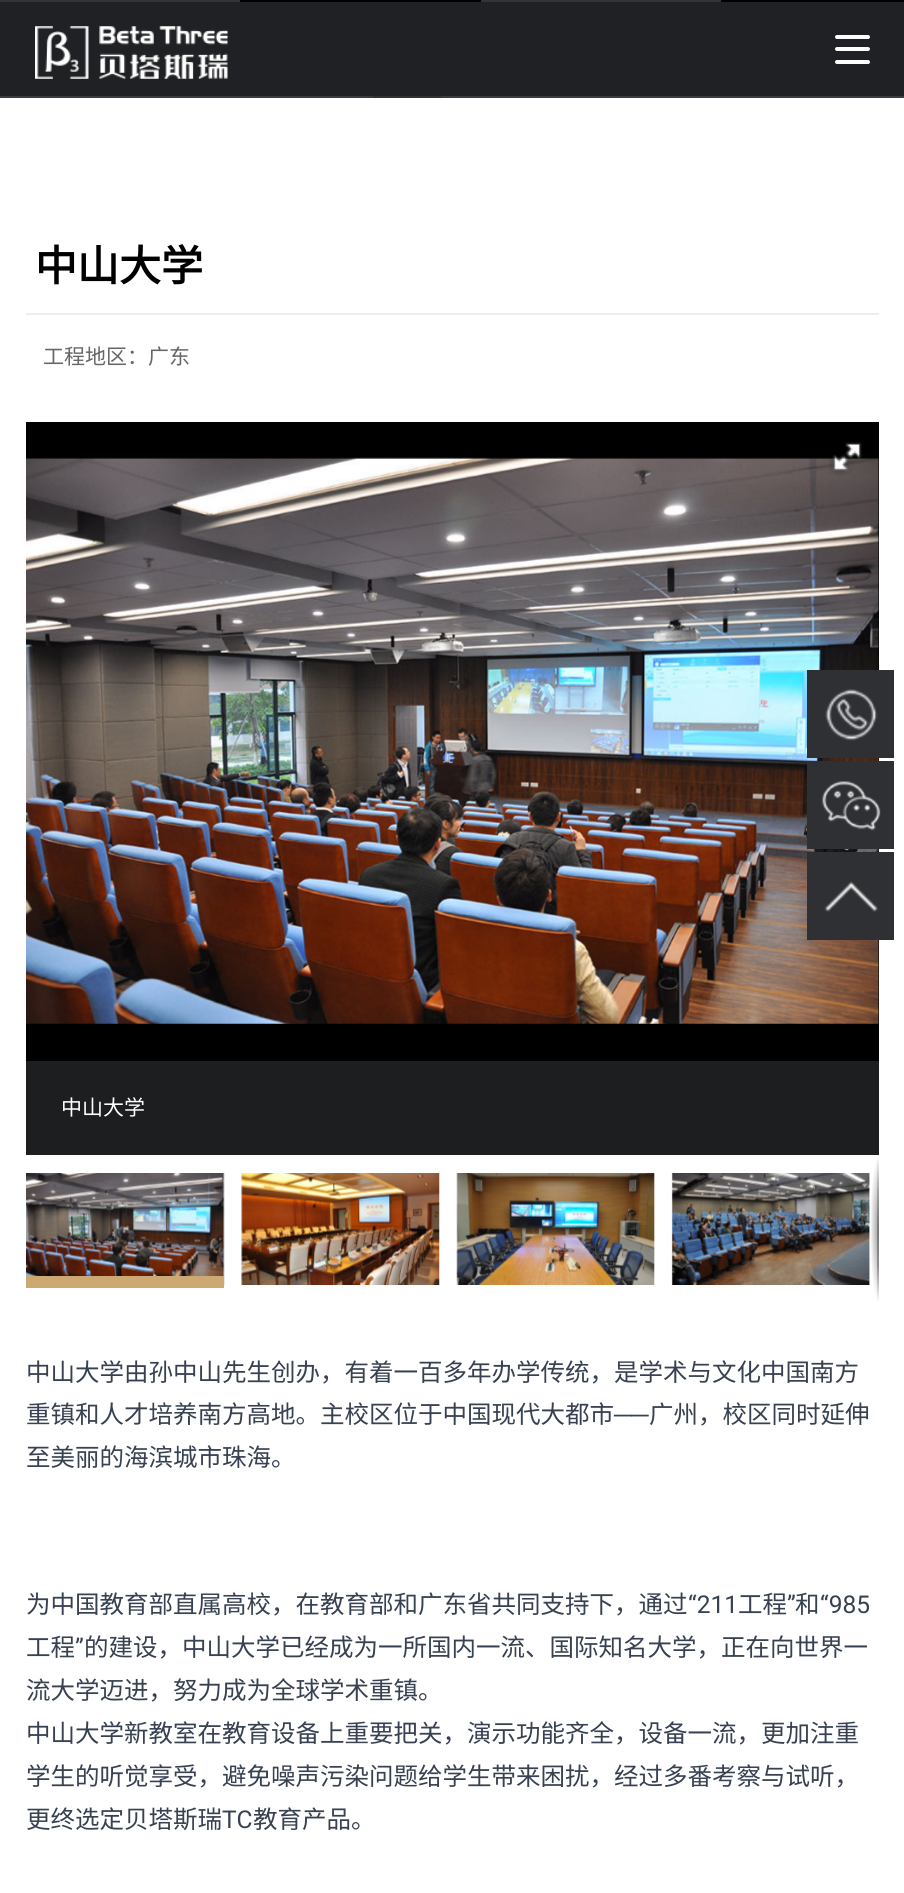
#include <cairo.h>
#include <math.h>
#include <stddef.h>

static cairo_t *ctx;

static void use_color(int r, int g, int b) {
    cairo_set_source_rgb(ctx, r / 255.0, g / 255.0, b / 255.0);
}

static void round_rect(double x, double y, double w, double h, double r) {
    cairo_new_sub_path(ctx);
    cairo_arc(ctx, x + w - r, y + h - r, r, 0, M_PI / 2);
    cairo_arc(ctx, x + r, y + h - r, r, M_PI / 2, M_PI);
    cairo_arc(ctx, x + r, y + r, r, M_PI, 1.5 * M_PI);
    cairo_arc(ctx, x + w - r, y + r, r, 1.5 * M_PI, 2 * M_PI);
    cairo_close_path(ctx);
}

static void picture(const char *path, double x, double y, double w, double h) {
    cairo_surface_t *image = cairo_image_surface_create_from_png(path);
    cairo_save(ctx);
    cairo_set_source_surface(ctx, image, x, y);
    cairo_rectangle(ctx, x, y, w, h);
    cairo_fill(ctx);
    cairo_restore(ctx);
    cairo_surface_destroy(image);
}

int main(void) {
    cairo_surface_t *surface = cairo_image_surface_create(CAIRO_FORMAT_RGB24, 904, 1893);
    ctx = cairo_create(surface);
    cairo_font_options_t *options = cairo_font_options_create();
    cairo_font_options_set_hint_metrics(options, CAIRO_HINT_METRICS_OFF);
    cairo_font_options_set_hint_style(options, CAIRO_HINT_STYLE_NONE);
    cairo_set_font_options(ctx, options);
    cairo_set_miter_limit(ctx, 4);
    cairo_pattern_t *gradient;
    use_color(255, 255, 255);
    cairo_paint(ctx);
    gradient = cairo_pattern_create_linear(0, 1.8, 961, 0);
    cairo_pattern_add_color_stop_rgba(gradient, 0.25, 0.2, 0.2, 0.2, 1);
    cairo_pattern_add_color_stop_rgba(gradient, 0.25, 0, 0, 0, 1);
    cairo_pattern_add_color_stop_rgba(gradient, 0.5, 0, 0, 0, 1);
    cairo_pattern_add_color_stop_rgba(gradient, 0.5, 0.2, 0.2, 0.2, 1);
    cairo_pattern_add_color_stop_rgba(gradient, 0.75, 0.2, 0.2, 0.2, 1);
    cairo_pattern_add_color_stop_rgba(gradient, 0.75, 0, 0, 0, 1);
    cairo_pattern_add_color_stop_rgba(gradient, 1, 0, 0, 0, 1);
    cairo_set_source(ctx, gradient);
    cairo_pattern_destroy(gradient);
    cairo_rectangle(ctx, 0, 0, 904, 2);
    cairo_fill(ctx);
    use_color(32, 33, 36);
    cairo_rectangle(ctx, 0, 2, 904, 94);
    cairo_fill(ctx);
    picture("img1.png", 35, 26, 193, 53);
    use_color(255, 255, 255);
    round_rect(835, 35, 35, 4, 2);
    cairo_fill(ctx);
    round_rect(835, 47, 35, 4, 2);
    cairo_fill(ctx);
    round_rect(835, 60, 35, 4, 2);
    cairo_fill(ctx);
    use_color(58, 60, 65);
    cairo_rectangle(ctx, 0, 96, 904, 2);
    cairo_fill(ctx);
    use_color(49, 51, 55);
    cairo_rectangle(ctx, 373, 96, 68, 2);
    cairo_fill(ctx);
    use_color(238, 238, 238);
    cairo_rectangle(ctx, 26, 313, 853, 2);
    cairo_fill(ctx);
    cairo_select_font_face(ctx, "Noto Sans CJK SC", CAIRO_FONT_SLANT_NORMAL, CAIRO_FONT_WEIGHT_BOLD);
    cairo_set_font_size(ctx, 42);
    use_color(0, 0, 0);
    cairo_move_to(ctx, 35, 281);
    cairo_show_text(ctx, "中山大学");
    cairo_select_font_face(ctx, "Noto Sans CJK SC", CAIRO_FONT_SLANT_NORMAL, CAIRO_FONT_WEIGHT_NORMAL);
    cairo_set_font_size(ctx, 21);
    use_color(102, 102, 102);
    cairo_move_to(ctx, 43, 364);
    cairo_show_text(ctx, "工程地区：广东");
    use_color(0, 0, 0);
    cairo_rectangle(ctx, 26, 422, 853, 639);
    cairo_fill(ctx);
    picture("img3.png", 26, 457, 853, 567);
    picture("img2.png", 829, 442, 33, 33);
    use_color(29, 30, 31);
    cairo_rectangle(ctx, 26, 1061, 853, 94);
    cairo_fill(ctx);
    use_color(255, 255, 255);
    cairo_move_to(ctx, 61, 1115);
    cairo_show_text(ctx, "中山大学");
    picture("img4.png", 26, 1173, 199, 112);
    picture("img5.png", 241, 1173, 199, 112);
    picture("img6.png", 456, 1173, 199, 112);
    picture("img7.png", 671, 1173, 199, 112);
    use_color(204, 169, 115);
    cairo_rectangle(ctx, 26, 1276, 198, 12);
    cairo_fill(ctx);
    gradient = cairo_pattern_create_radial(0, 0, 0, 0, 0, 1);
    cairo_pattern_set_matrix(gradient, &(cairo_matrix_t){1.0 / 9, 0, 0, 1.0 / 74, -1.0 * 879 / 9, -1.0 * 1229 / 74});
    cairo_pattern_add_color_stop_rgba(gradient, 0, 0.6, 0.6, 0.6, 1);
    cairo_pattern_add_color_stop_rgba(gradient, 1, 1, 1, 1, 1);
    cairo_set_source(ctx, gradient);
    cairo_pattern_destroy(gradient);
    cairo_rectangle(ctx, 870, 1157, 9, 144);
    cairo_fill(ctx);
    gradient = cairo_pattern_create_linear(878, 1155, 878, 1302);
    cairo_pattern_add_color_stop_rgba(gradient, 0, 0, 0, 0, 0);
    cairo_pattern_add_color_stop_rgba(gradient, 0.25, 0, 0, 0, 0.2);
    cairo_pattern_add_color_stop_rgba(gradient, 0.75, 0, 0, 0, 0.3);
    cairo_pattern_add_color_stop_rgba(gradient, 1, 0, 0, 0, 0);
    cairo_set_source(ctx, gradient);
    cairo_pattern_destroy(gradient);
    cairo_rectangle(ctx, 877, 1155, 2, 147);
    cairo_fill(ctx);
    cairo_set_font_size(ctx, 24.5);
    use_color(55, 65, 81);
    cairo_move_to(ctx, 26, 1381);
    cairo_show_text(ctx, "中山大学由孙中山先生创办，有着一百多年办学传统，是学术与文化中国南方");
    cairo_move_to(ctx, 26, 1423);
    cairo_show_text(ctx, "重镇和人才培养南方高地。主校区位于中国现代大都市");
    cairo_select_font_face(ctx, "Liberation Sans", CAIRO_FONT_SLANT_NORMAL, CAIRO_FONT_WEIGHT_NORMAL);
    cairo_move_to(ctx, 614, 1423);
    cairo_show_text(ctx, "──");
    cairo_select_font_face(ctx, "Noto Sans CJK SC", CAIRO_FONT_SLANT_NORMAL, CAIRO_FONT_WEIGHT_NORMAL);
    cairo_move_to(ctx, 649, 1423);
    cairo_show_text(ctx, "广州，校区同时延伸");
    cairo_move_to(ctx, 26, 1466);
    cairo_show_text(ctx, "至美丽的海滨城市珠海。");
    cairo_move_to(ctx, 26, 1613);
    cairo_show_text(ctx, "为中国教育部直属高校，在教育部和广东省共同支持下，通过");
    cairo_select_font_face(ctx, "Roboto", CAIRO_FONT_SLANT_NORMAL, CAIRO_FONT_WEIGHT_NORMAL);
    cairo_move_to(ctx, 688, 1613);
    cairo_show_text(ctx, "“211");
    cairo_select_font_face(ctx, "Noto Sans CJK SC", CAIRO_FONT_SLANT_NORMAL, CAIRO_FONT_WEIGHT_NORMAL);
    cairo_move_to(ctx, 738, 1613);
    cairo_show_text(ctx, "工程");
    cairo_select_font_face(ctx, "Roboto", CAIRO_FONT_SLANT_NORMAL, CAIRO_FONT_WEIGHT_NORMAL);
    cairo_move_to(ctx, 787, 1613);
    cairo_show_text(ctx, "”");
    cairo_select_font_face(ctx, "Noto Sans CJK SC", CAIRO_FONT_SLANT_NORMAL, CAIRO_FONT_WEIGHT_NORMAL);
    cairo_move_to(ctx, 795, 1613);
    cairo_show_text(ctx, "和");
    cairo_select_font_face(ctx, "Roboto", CAIRO_FONT_SLANT_NORMAL, CAIRO_FONT_WEIGHT_NORMAL);
    cairo_move_to(ctx, 820, 1613);
    cairo_show_text(ctx, "“985");
    cairo_select_font_face(ctx, "Noto Sans CJK SC", CAIRO_FONT_SLANT_NORMAL, CAIRO_FONT_WEIGHT_NORMAL);
    cairo_move_to(ctx, 26, 1656);
    cairo_show_text(ctx, "工程");
    cairo_select_font_face(ctx, "Roboto", CAIRO_FONT_SLANT_NORMAL, CAIRO_FONT_WEIGHT_NORMAL);
    cairo_move_to(ctx, 75, 1656);
    cairo_show_text(ctx, "”");
    cairo_select_font_face(ctx, "Noto Sans CJK SC", CAIRO_FONT_SLANT_NORMAL, CAIRO_FONT_WEIGHT_NORMAL);
    cairo_move_to(ctx, 84, 1656);
    cairo_show_text(ctx, "的建设，中山大学已经成为一所国内一流、国际知名大学，正在向世界一");
    cairo_move_to(ctx, 26, 1699);
    cairo_show_text(ctx, "流大学迈进，努力成为全球学术重镇。");
    cairo_move_to(ctx, 26, 1742);
    cairo_show_text(ctx, "中山大学新教室在教育设备上重要把关，演示功能齐全，设备一流，更加注重");
    cairo_move_to(ctx, 26, 1785);
    cairo_show_text(ctx, "学生的听觉享受，避免噪声污染问题给学生带来困扰，经过多番考察与试听，");
    cairo_move_to(ctx, 26, 1828);
    cairo_show_text(ctx, "更终选定贝塔斯瑞");
    cairo_select_font_face(ctx, "Roboto", CAIRO_FONT_SLANT_NORMAL, CAIRO_FONT_WEIGHT_NORMAL);
    cairo_move_to(ctx, 222, 1828);
    cairo_show_text(ctx, "TC");
    cairo_select_font_face(ctx, "Noto Sans CJK SC", CAIRO_FONT_SLANT_NORMAL, CAIRO_FONT_WEIGHT_NORMAL);
    cairo_move_to(ctx, 253, 1828);
    cairo_show_text(ctx, "教育产品。");
    use_color(46, 48, 51);
    cairo_rectangle(ctx, 807, 670, 87, 88);
    cairo_fill(ctx);
    picture("img8.png", 825, 689, 53, 52);
    cairo_rectangle(ctx, 807, 761, 87, 88);
    cairo_fill(ctx);
    picture("img9.png", 821, 781, 60, 50);
    cairo_rectangle(ctx, 807, 852, 87, 88);
    cairo_fill(ctx);
    picture("img10.png", 824, 881, 54, 31);
    cairo_surface_write_to_png(surface, "result.png");
    cairo_font_options_destroy(options);
    cairo_destroy(ctx);
    cairo_surface_destroy(surface);
    return 0;
}
